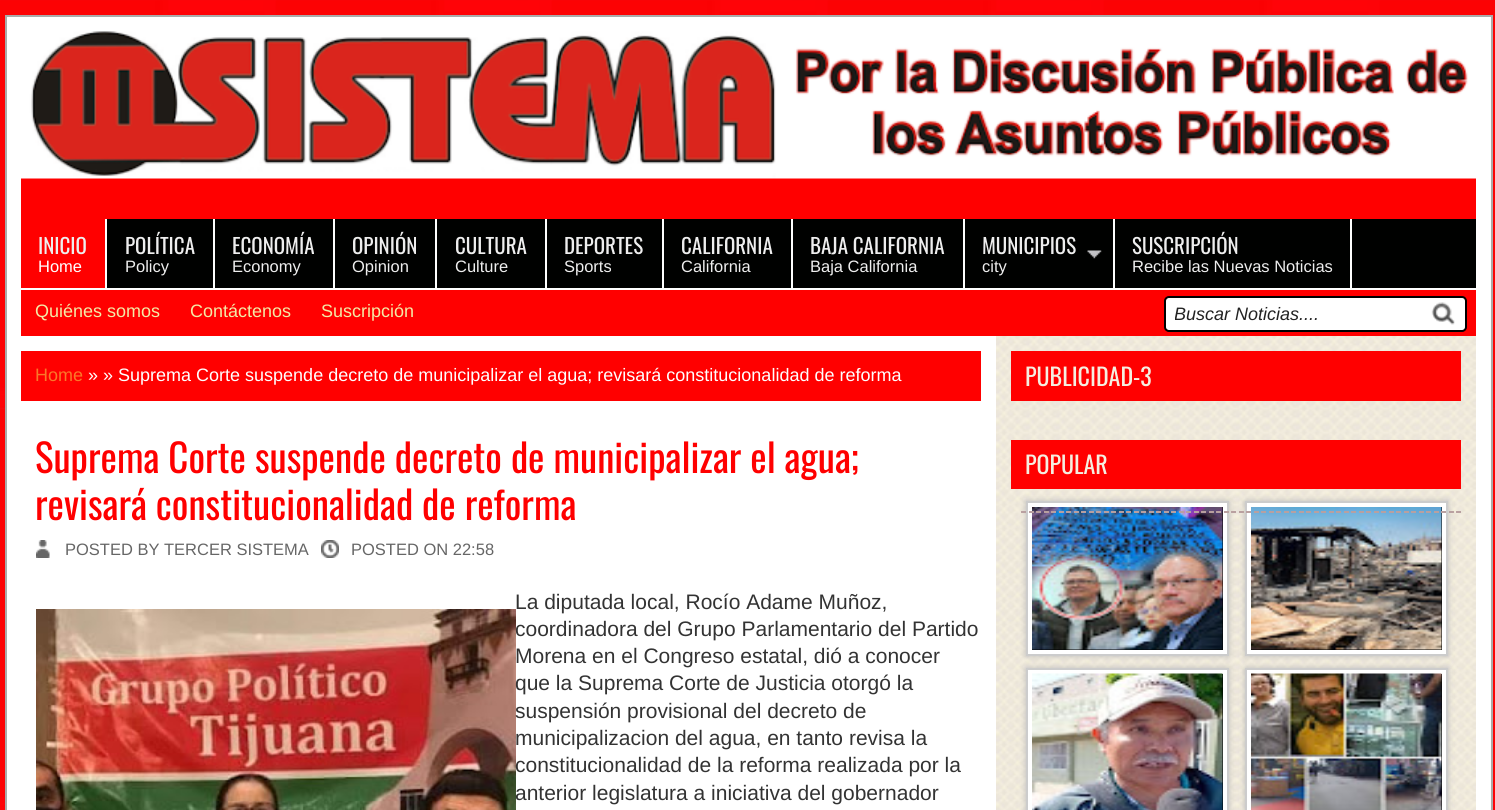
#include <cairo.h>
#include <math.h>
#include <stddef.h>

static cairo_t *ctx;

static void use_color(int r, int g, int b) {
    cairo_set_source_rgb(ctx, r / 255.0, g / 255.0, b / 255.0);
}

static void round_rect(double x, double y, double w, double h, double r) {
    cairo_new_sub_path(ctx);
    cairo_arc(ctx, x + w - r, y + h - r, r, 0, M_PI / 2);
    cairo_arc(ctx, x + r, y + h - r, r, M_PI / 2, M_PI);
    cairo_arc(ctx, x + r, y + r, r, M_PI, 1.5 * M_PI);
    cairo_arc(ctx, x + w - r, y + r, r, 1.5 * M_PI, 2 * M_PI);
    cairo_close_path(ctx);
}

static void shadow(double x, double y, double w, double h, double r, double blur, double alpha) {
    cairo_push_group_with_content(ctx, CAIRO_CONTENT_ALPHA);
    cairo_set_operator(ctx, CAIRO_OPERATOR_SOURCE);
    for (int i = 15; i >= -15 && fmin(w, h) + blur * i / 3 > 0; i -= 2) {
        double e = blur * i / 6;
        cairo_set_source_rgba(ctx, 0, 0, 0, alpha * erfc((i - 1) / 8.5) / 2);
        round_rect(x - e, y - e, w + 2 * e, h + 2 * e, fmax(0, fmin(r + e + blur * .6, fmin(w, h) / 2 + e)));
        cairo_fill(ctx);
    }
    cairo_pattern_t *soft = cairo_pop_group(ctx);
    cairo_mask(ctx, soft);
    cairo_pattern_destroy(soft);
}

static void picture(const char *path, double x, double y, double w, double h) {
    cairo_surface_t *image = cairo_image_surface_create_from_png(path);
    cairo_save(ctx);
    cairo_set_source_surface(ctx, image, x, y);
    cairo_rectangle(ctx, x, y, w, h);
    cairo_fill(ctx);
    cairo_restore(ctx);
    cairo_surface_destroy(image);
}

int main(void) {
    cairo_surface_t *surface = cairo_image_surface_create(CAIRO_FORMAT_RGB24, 1495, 810);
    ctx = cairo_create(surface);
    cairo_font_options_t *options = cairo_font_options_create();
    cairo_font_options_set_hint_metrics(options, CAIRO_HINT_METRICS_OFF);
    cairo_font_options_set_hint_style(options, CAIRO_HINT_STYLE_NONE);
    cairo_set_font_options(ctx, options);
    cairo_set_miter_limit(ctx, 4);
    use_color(255, 255, 255);
    cairo_paint(ctx);
    picture("img1.png", 0, 0, 1495, 810);
    use_color(255, 255, 255);
    cairo_rectangle(ctx, 6, 16, 1486, 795);
    cairo_fill_preserve(ctx);
    use_color(170, 170, 170);
    cairo_stroke(ctx);
    use_color(255, 0, 0);
    cairo_rectangle(ctx, 21, 178, 1455, 41);
    cairo_fill(ctx);
    picture("img2.png", 21, 31, 1455, 148);
    use_color(0, 1, 0);
    cairo_rectangle(ctx, 107, 219, 1369, 69);
    cairo_fill(ctx);
    use_color(255, 0, 0);
    cairo_rectangle(ctx, 21, 219, 84, 69);
    cairo_fill(ctx);
    cairo_select_font_face(ctx, "Oswald", CAIRO_FONT_SLANT_NORMAL, CAIRO_FONT_WEIGHT_NORMAL);
    cairo_set_font_size(ctx, 21);
    use_color(238, 238, 238);
    cairo_move_to(ctx, 38, 254);
    cairo_show_text(ctx, "INICIO");
    cairo_select_font_face(ctx, "Liberation Sans", CAIRO_FONT_SLANT_NORMAL, CAIRO_FONT_WEIGHT_NORMAL);
    cairo_set_font_size(ctx, 16.5);
    use_color(255, 255, 255);
    cairo_move_to(ctx, 38, 272);
    cairo_show_text(ctx, "Home");
    cairo_rectangle(ctx, 213, 219, 2, 69);
    cairo_fill(ctx);
    cairo_select_font_face(ctx, "Oswald", CAIRO_FONT_SLANT_NORMAL, CAIRO_FONT_WEIGHT_NORMAL);
    cairo_set_font_size(ctx, 21);
    use_color(238, 238, 238);
    cairo_move_to(ctx, 125, 254);
    cairo_show_text(ctx, "POLÍTICA");
    cairo_select_font_face(ctx, "Liberation Sans", CAIRO_FONT_SLANT_NORMAL, CAIRO_FONT_WEIGHT_NORMAL);
    cairo_set_font_size(ctx, 16.5);
    cairo_move_to(ctx, 125, 272);
    cairo_show_text(ctx, "Policy");
    use_color(255, 255, 255);
    cairo_rectangle(ctx, 333, 219, 2, 69);
    cairo_fill(ctx);
    cairo_select_font_face(ctx, "Oswald", CAIRO_FONT_SLANT_NORMAL, CAIRO_FONT_WEIGHT_NORMAL);
    cairo_set_font_size(ctx, 21);
    use_color(238, 238, 238);
    cairo_move_to(ctx, 232, 254);
    cairo_show_text(ctx, "ECONOMÍA");
    cairo_select_font_face(ctx, "Liberation Sans", CAIRO_FONT_SLANT_NORMAL, CAIRO_FONT_WEIGHT_NORMAL);
    cairo_set_font_size(ctx, 16.5);
    cairo_move_to(ctx, 232, 272);
    cairo_show_text(ctx, "Economy");
    use_color(255, 255, 255);
    cairo_rectangle(ctx, 435, 219, 2, 69);
    cairo_fill(ctx);
    cairo_select_font_face(ctx, "Oswald", CAIRO_FONT_SLANT_NORMAL, CAIRO_FONT_WEIGHT_NORMAL);
    cairo_set_font_size(ctx, 21);
    use_color(238, 238, 238);
    cairo_move_to(ctx, 352, 254);
    cairo_show_text(ctx, "OPINIÓN");
    cairo_select_font_face(ctx, "Liberation Sans", CAIRO_FONT_SLANT_NORMAL, CAIRO_FONT_WEIGHT_NORMAL);
    cairo_set_font_size(ctx, 16.5);
    cairo_move_to(ctx, 352, 272);
    cairo_show_text(ctx, "Opinion");
    use_color(255, 255, 255);
    cairo_rectangle(ctx, 545, 219, 2, 69);
    cairo_fill(ctx);
    cairo_select_font_face(ctx, "Oswald", CAIRO_FONT_SLANT_NORMAL, CAIRO_FONT_WEIGHT_NORMAL);
    cairo_set_font_size(ctx, 21);
    use_color(238, 238, 238);
    cairo_move_to(ctx, 455, 254);
    cairo_show_text(ctx, "CULTURA");
    cairo_select_font_face(ctx, "Liberation Sans", CAIRO_FONT_SLANT_NORMAL, CAIRO_FONT_WEIGHT_NORMAL);
    cairo_set_font_size(ctx, 16.5);
    cairo_move_to(ctx, 455, 272);
    cairo_show_text(ctx, "Culture");
    use_color(255, 255, 255);
    cairo_rectangle(ctx, 662, 219, 2, 69);
    cairo_fill(ctx);
    cairo_select_font_face(ctx, "Oswald", CAIRO_FONT_SLANT_NORMAL, CAIRO_FONT_WEIGHT_NORMAL);
    cairo_set_font_size(ctx, 21);
    use_color(238, 238, 238);
    cairo_move_to(ctx, 564, 254);
    cairo_show_text(ctx, "DEPORTES");
    cairo_select_font_face(ctx, "Liberation Sans", CAIRO_FONT_SLANT_NORMAL, CAIRO_FONT_WEIGHT_NORMAL);
    cairo_set_font_size(ctx, 16.5);
    cairo_move_to(ctx, 564, 272);
    cairo_show_text(ctx, "Sports");
    use_color(255, 255, 255);
    cairo_rectangle(ctx, 791, 219, 2, 69);
    cairo_fill(ctx);
    cairo_select_font_face(ctx, "Oswald", CAIRO_FONT_SLANT_NORMAL, CAIRO_FONT_WEIGHT_NORMAL);
    cairo_set_font_size(ctx, 21);
    use_color(238, 238, 238);
    cairo_move_to(ctx, 681, 254);
    cairo_show_text(ctx, "CALIFORNIA");
    cairo_select_font_face(ctx, "Liberation Sans", CAIRO_FONT_SLANT_NORMAL, CAIRO_FONT_WEIGHT_NORMAL);
    cairo_set_font_size(ctx, 16.5);
    cairo_move_to(ctx, 681, 272);
    cairo_show_text(ctx, "California");
    use_color(255, 255, 255);
    cairo_rectangle(ctx, 963, 219, 2, 69);
    cairo_fill(ctx);
    cairo_select_font_face(ctx, "Oswald", CAIRO_FONT_SLANT_NORMAL, CAIRO_FONT_WEIGHT_NORMAL);
    cairo_set_font_size(ctx, 21);
    use_color(238, 238, 238);
    cairo_move_to(ctx, 810, 254);
    cairo_show_text(ctx, "BAJA CALIFORNIA");
    cairo_select_font_face(ctx, "Liberation Sans", CAIRO_FONT_SLANT_NORMAL, CAIRO_FONT_WEIGHT_NORMAL);
    cairo_set_font_size(ctx, 16.5);
    cairo_move_to(ctx, 810, 272);
    cairo_show_text(ctx, "Baja California");
    picture("img3.png", 1087, 250, 15, 9);
    use_color(255, 255, 255);
    cairo_rectangle(ctx, 1113, 219, 2, 69);
    cairo_fill(ctx);
    cairo_select_font_face(ctx, "Oswald", CAIRO_FONT_SLANT_NORMAL, CAIRO_FONT_WEIGHT_NORMAL);
    cairo_set_font_size(ctx, 21);
    use_color(238, 238, 238);
    cairo_move_to(ctx, 982, 254);
    cairo_show_text(ctx, "MUNICIPIOS");
    cairo_select_font_face(ctx, "Liberation Sans", CAIRO_FONT_SLANT_NORMAL, CAIRO_FONT_WEIGHT_NORMAL);
    cairo_set_font_size(ctx, 16.5);
    cairo_move_to(ctx, 982, 272);
    cairo_show_text(ctx, "city");
    use_color(255, 255, 255);
    cairo_rectangle(ctx, 1350, 219, 2, 69);
    cairo_fill(ctx);
    cairo_select_font_face(ctx, "Oswald", CAIRO_FONT_SLANT_NORMAL, CAIRO_FONT_WEIGHT_NORMAL);
    cairo_set_font_size(ctx, 21);
    use_color(238, 238, 238);
    cairo_move_to(ctx, 1132, 254);
    cairo_show_text(ctx, "SUSCRIPCIÓN");
    cairo_select_font_face(ctx, "Liberation Sans", CAIRO_FONT_SLANT_NORMAL, CAIRO_FONT_WEIGHT_NORMAL);
    cairo_set_font_size(ctx, 16.5);
    cairo_move_to(ctx, 1132, 272);
    cairo_show_text(ctx, "Recibe las Nuevas Noticias");
    use_color(255, 0, 0);
    cairo_rectangle(ctx, 21, 290, 1455, 46);
    cairo_fill(ctx);
    cairo_set_font_size(ctx, 18);
    use_color(244, 234, 166);
    cairo_move_to(ctx, 35, 317);
    cairo_show_text(ctx, "Quiénes somos");
    cairo_move_to(ctx, 190, 317);
    cairo_show_text(ctx, "Contáctenos");
    cairo_move_to(ctx, 321, 317);
    cairo_show_text(ctx, "Suscripción");
    use_color(255, 255, 255);
    round_rect(1165, 297, 301, 34, 4);
    cairo_fill_preserve(ctx);
    use_color(0, 0, 0);
    cairo_stroke(ctx);
    cairo_save(ctx);
    cairo_rectangle(ctx, 1175, 297, 247, 33);
    cairo_clip(ctx);
    cairo_select_font_face(ctx, "Liberation Sans", CAIRO_FONT_SLANT_ITALIC, CAIRO_FONT_WEIGHT_NORMAL);
    use_color(34, 34, 34);
    cairo_move_to(ctx, 1174, 320);
    cairo_show_text(ctx, "Buscar Noticias....");
    cairo_restore(ctx);
    picture("img4.png", 1431, 302, 24, 23);
    use_color(255, 0, 0);
    cairo_rectangle(ctx, 21, 351, 960, 50);
    cairo_fill(ctx);
    use_color(250, 120, 41);
    cairo_move_to(ctx, 35, 381);
    cairo_show_text(ctx, "Home");
    use_color(255, 255, 255);
    cairo_move_to(ctx, 88, 381);
    cairo_show_text(ctx, "» » Suprema Corte suspende decreto de municipalizar el agua; revisará constitucionalidad de reforma");
    cairo_select_font_face(ctx, "Oswald", CAIRO_FONT_SLANT_NORMAL, CAIRO_FONT_WEIGHT_NORMAL);
    cairo_set_font_size(ctx, 39);
    use_color(255, 0, 0);
    cairo_move_to(ctx, 35, 473);
    cairo_show_text(ctx, "Suprema Corte suspende decreto de municipalizar el agua;");
    cairo_move_to(ctx, 35, 520);
    cairo_show_text(ctx, "revisará constitucionalidad de reforma");
    picture("img5.png", 36, 540, 14, 18);
    cairo_select_font_face(ctx, "Liberation Sans", CAIRO_FONT_SLANT_NORMAL, CAIRO_FONT_WEIGHT_NORMAL);
    cairo_set_font_size(ctx, 16.5);
    use_color(102, 102, 102);
    cairo_move_to(ctx, 65, 555);
    cairo_show_text(ctx, "POSTED BY TERCER SISTEMA");
    picture("img6.png", 321, 540, 18, 18);
    cairo_move_to(ctx, 351, 555);
    cairo_show_text(ctx, "POSTED ON 22:58");
    cairo_set_font_size(ctx, 21);
    use_color(51, 51, 51);
    cairo_move_to(ctx, 515, 609);
    cairo_show_text(ctx, "La diputada local, Rocío Adame Muñoz,");
    picture("img7.png", 36, 609, 480, 201);
    cairo_move_to(ctx, 515, 636);
    cairo_show_text(ctx, "coordinadora del Grupo Parlamentario del Partido");
    cairo_move_to(ctx, 515, 663);
    cairo_show_text(ctx, "Morena en el Congreso estatal, dió a conocer");
    cairo_move_to(ctx, 515, 690);
    cairo_show_text(ctx, "que la Suprema Corte de Justicia otorgó la");
    cairo_move_to(ctx, 515, 718);
    cairo_show_text(ctx, "suspensión provisional del decreto de");
    cairo_move_to(ctx, 515, 745);
    cairo_show_text(ctx, "municipalizacion del agua, en tanto revisa la");
    cairo_move_to(ctx, 515, 772);
    cairo_show_text(ctx, "constitucionalidad de la reforma realizada por la");
    cairo_move_to(ctx, 515, 800);
    cairo_show_text(ctx, "anterior legislatura a iniciativa del gobernador");
    picture("img8.png", 996, 336, 480, 474);
    use_color(255, 0, 0);
    cairo_rectangle(ctx, 1011, 351, 450, 50);
    cairo_fill(ctx);
    cairo_select_font_face(ctx, "Oswald", CAIRO_FONT_SLANT_NORMAL, CAIRO_FONT_WEIGHT_NORMAL);
    cairo_set_font_size(ctx, 24);
    use_color(245, 239, 225);
    cairo_move_to(ctx, 1025, 386);
    cairo_show_text(ctx, "PUBLICIDAD-3");
    use_color(255, 0, 0);
    cairo_rectangle(ctx, 1011, 440, 450, 49);
    cairo_fill(ctx);
    use_color(245, 239, 225);
    cairo_move_to(ctx, 1025, 474);
    cairo_show_text(ctx, "POPULAR");
    use_color(187, 187, 187);
    shadow(1026, 501, 203, 155, 0, 3, 1);
    use_color(255, 255, 255);
    cairo_rectangle(ctx, 1027, 502, 201, 153);
    cairo_fill_preserve(ctx);
    use_color(204, 204, 204);
    cairo_stroke(ctx);
    use_color(0, 0, 0);
    cairo_rectangle(ctx, 1032, 507, 191, 143);
    cairo_fill(ctx);
    picture("img9.png", 1032, 507, 191, 143);
    use_color(187, 187, 187);
    shadow(1245, 501, 203, 155, 0, 3, 1);
    use_color(255, 255, 255);
    cairo_rectangle(ctx, 1246, 502, 201, 153);
    cairo_fill_preserve(ctx);
    use_color(204, 204, 204);
    cairo_stroke(ctx);
    use_color(0, 0, 0);
    cairo_rectangle(ctx, 1251, 507, 191, 143);
    cairo_fill(ctx);
    picture("img10.png", 1251, 507, 191, 143);
    cairo_new_path(ctx);
    cairo_move_to(ctx, 1021.5, 512);
    cairo_line_to(ctx, 1461, 512);
    use_color(185, 159, 159);
    cairo_set_line_width(ctx, 1.5);
    cairo_set_dash(ctx, (double[]){4.5, 3}, 2, 0);
    cairo_stroke(ctx);
    cairo_new_path(ctx);
    cairo_move_to(ctx, 1021.5, 512);
    cairo_line_to(ctx, 1461, 512);
    cairo_stroke(ctx);
    cairo_new_path(ctx);
    cairo_move_to(ctx, 1021.5, 512);
    cairo_line_to(ctx, 1461, 512);
    cairo_stroke(ctx);
    use_color(187, 187, 187);
    shadow(1026, 668, 203, 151, 0, 3, 1);
    use_color(255, 255, 255);
    cairo_rectangle(ctx, 1027, 669, 201, 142);
    cairo_fill_preserve(ctx);
    use_color(204, 204, 204);
    cairo_set_line_width(ctx, 2);
    cairo_set_dash(ctx, NULL, 0, 0);
    cairo_stroke(ctx);
    use_color(0, 0, 0);
    cairo_rectangle(ctx, 1222, 674, 1, 136);
    cairo_fill(ctx);
    picture("img11.png", 1032, 673, 191, 137);
    cairo_new_path(ctx);
    cairo_move_to(ctx, 1021.5, 512);
    cairo_line_to(ctx, 1461, 512);
    use_color(185, 159, 159);
    cairo_set_line_width(ctx, 1.5);
    cairo_set_dash(ctx, (double[]){4.5, 3}, 2, 0);
    cairo_stroke(ctx);
    use_color(187, 187, 187);
    shadow(1245, 668, 203, 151, 0, 3, 1);
    use_color(255, 255, 255);
    cairo_rectangle(ctx, 1246, 669, 201, 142);
    cairo_fill_preserve(ctx);
    use_color(204, 204, 204);
    cairo_set_line_width(ctx, 2);
    cairo_set_dash(ctx, NULL, 0, 0);
    cairo_stroke(ctx);
    use_color(0, 0, 0);
    cairo_rectangle(ctx, 1441, 674, 1, 136);
    cairo_fill(ctx);
    picture("img12.png", 1251, 673, 191, 137);
    cairo_new_path(ctx);
    cairo_move_to(ctx, 1021.5, 512);
    cairo_line_to(ctx, 1461, 512);
    use_color(185, 159, 159);
    cairo_set_line_width(ctx, 1.5);
    cairo_set_dash(ctx, (double[]){4.5, 3}, 2, 0);
    cairo_stroke(ctx);
    cairo_new_path(ctx);
    cairo_move_to(ctx, 1021.5, 512);
    cairo_line_to(ctx, 1461, 512);
    cairo_stroke(ctx);
    cairo_new_path(ctx);
    cairo_move_to(ctx, 1021.5, 512);
    cairo_line_to(ctx, 1461, 512);
    cairo_stroke(ctx);
    cairo_surface_write_to_png(surface, "result.png");
    cairo_font_options_destroy(options);
    cairo_destroy(ctx);
    cairo_surface_destroy(surface);
    return 0;
}
